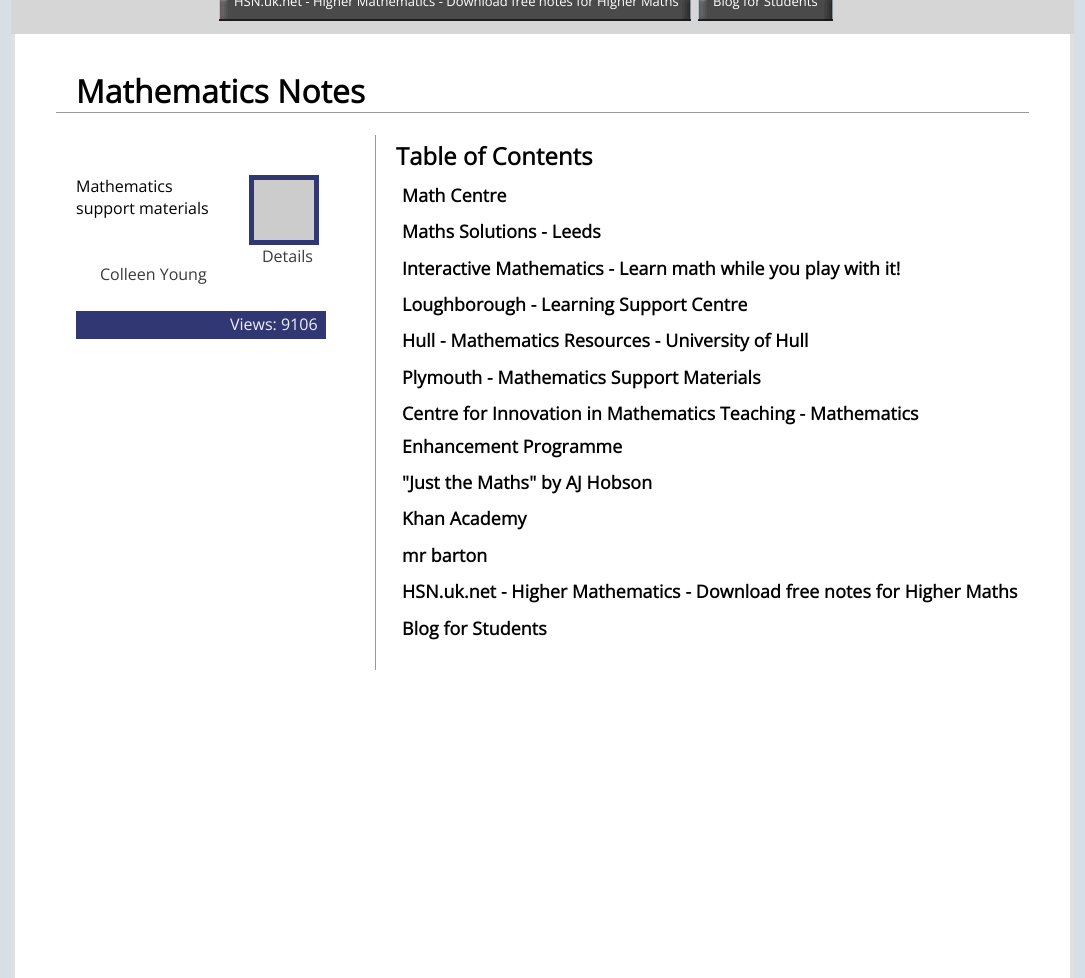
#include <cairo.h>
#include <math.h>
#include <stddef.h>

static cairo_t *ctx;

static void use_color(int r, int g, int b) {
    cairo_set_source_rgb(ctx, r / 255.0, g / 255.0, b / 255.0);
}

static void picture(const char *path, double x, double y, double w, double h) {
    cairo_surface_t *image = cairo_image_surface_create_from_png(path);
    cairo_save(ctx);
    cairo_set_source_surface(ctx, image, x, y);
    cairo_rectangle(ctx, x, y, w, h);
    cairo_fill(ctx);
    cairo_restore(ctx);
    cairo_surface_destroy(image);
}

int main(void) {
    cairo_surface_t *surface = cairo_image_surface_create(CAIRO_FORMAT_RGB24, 1085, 978);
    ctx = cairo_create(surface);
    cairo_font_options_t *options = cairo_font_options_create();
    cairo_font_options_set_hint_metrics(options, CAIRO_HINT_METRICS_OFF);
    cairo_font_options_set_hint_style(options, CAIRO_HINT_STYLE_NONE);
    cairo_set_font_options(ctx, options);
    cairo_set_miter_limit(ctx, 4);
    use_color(216, 223, 228);
    cairo_paint(ctx);
    use_color(214, 214, 214);
    cairo_rectangle(ctx, 11, 0, 1063, 34);
    cairo_fill(ctx);
    picture("img1.png", 219, 0, 9, 21);
    picture("img2.png", 228, 0, 454, 21);
    cairo_select_font_face(ctx, "Open Sans", CAIRO_FONT_SLANT_NORMAL, CAIRO_FONT_WEIGHT_NORMAL);
    cairo_set_font_size(ctx, 13);
    use_color(255, 255, 255);
    cairo_move_to(ctx, 234, 6);
    cairo_show_text(ctx, "HSN.uk.net - Higher Mathematics - Download free notes for Higher Maths");
    picture("img3.png", 682, 0, 9, 21);
    picture("img1.png", 698, 0, 9, 21);
    picture("img4.png", 707, 0, 117, 21);
    cairo_move_to(ctx, 713, 6);
    cairo_show_text(ctx, "Blog for Students");
    picture("img3.png", 824, 0, 9, 21);
    cairo_rectangle(ctx, 15, 34, 1055, 944);
    cairo_fill(ctx);
    use_color(224, 224, 224);
    cairo_rectangle(ctx, 1070, 34, 4, 944);
    cairo_fill(ctx);
    cairo_rectangle(ctx, 11, 34, 4, 944);
    cairo_fill(ctx);
    use_color(153, 153, 153);
    cairo_rectangle(ctx, 56, 112, 973, 1);
    cairo_fill(ctx);
    cairo_select_font_face(ctx, "Open Sans", CAIRO_FONT_SLANT_NORMAL, CAIRO_FONT_WEIGHT_BOLD);
    cairo_set_font_size(ctx, 32);
    use_color(0, 0, 0);
    cairo_move_to(ctx, 76, 103);
    cairo_show_text(ctx, "Mathematics Notes");
    use_color(153, 153, 153);
    cairo_rectangle(ctx, 375, 135, 1, 535);
    cairo_fill(ctx);
    cairo_set_font_size(ctx, 24);
    use_color(0, 0, 0);
    cairo_move_to(ctx, 396, 165);
    cairo_show_text(ctx, "Table of Contents");
    cairo_select_font_face(ctx, "Open Sans", CAIRO_FONT_SLANT_NORMAL, CAIRO_FONT_WEIGHT_NORMAL);
    cairo_set_font_size(ctx, 16);
    cairo_move_to(ctx, 76, 192);
    cairo_show_text(ctx, "Mathematics");
    cairo_move_to(ctx, 76, 214);
    cairo_show_text(ctx, "support materials");
    use_color(49, 55, 115);
    cairo_rectangle(ctx, 249, 175, 70, 70);
    cairo_fill(ctx);
    use_color(204, 204, 204);
    cairo_rectangle(ctx, 254, 180, 60, 60);
    cairo_fill(ctx);
    use_color(57, 57, 57);
    cairo_move_to(ctx, 262, 262);
    cairo_show_text(ctx, "Details");
    cairo_move_to(ctx, 100, 280);
    cairo_show_text(ctx, "Colleen Young");
    use_color(49, 55, 115);
    cairo_rectangle(ctx, 76, 311, 250, 28);
    cairo_fill(ctx);
    use_color(237, 239, 248);
    cairo_move_to(ctx, 230, 330);
    cairo_show_text(ctx, "Views: 9106");
    cairo_select_font_face(ctx, "Open Sans", CAIRO_FONT_SLANT_NORMAL, CAIRO_FONT_WEIGHT_BOLD);
    cairo_set_font_size(ctx, 18);
    use_color(0, 0, 0);
    cairo_move_to(ctx, 402, 202);
    cairo_show_text(ctx, "Math Centre");
    cairo_move_to(ctx, 402, 238);
    cairo_show_text(ctx, "Maths Solutions - Leeds");
    cairo_move_to(ctx, 402, 275);
    cairo_show_text(ctx, "Interactive Mathematics - Learn math while you play with it!");
    cairo_move_to(ctx, 402, 311);
    cairo_show_text(ctx, "Loughborough - Learning Support Centre");
    cairo_move_to(ctx, 402, 347);
    cairo_show_text(ctx, "Hull - Mathematics Resources - University of Hull");
    cairo_move_to(ctx, 402, 384);
    cairo_show_text(ctx, "Plymouth - Mathematics Support Materials");
    cairo_move_to(ctx, 402, 420);
    cairo_show_text(ctx, "Centre for Innovation in Mathematics Teaching - Mathematics");
    cairo_move_to(ctx, 402, 453);
    cairo_show_text(ctx, "Enhancement Programme");
    cairo_move_to(ctx, 402, 489);
    cairo_show_text(ctx, "\"Just the Maths\" by AJ Hobson");
    cairo_move_to(ctx, 402, 525);
    cairo_show_text(ctx, "Khan Academy");
    cairo_move_to(ctx, 402, 562);
    cairo_show_text(ctx, "mr barton");
    cairo_move_to(ctx, 402, 598);
    cairo_show_text(ctx, "HSN.uk.net - Higher Mathematics - Download free notes for Higher Maths");
    cairo_move_to(ctx, 402, 635);
    cairo_show_text(ctx, "Blog for Students");
    cairo_surface_write_to_png(surface, "result.png");
    cairo_font_options_destroy(options);
    cairo_destroy(ctx);
    cairo_surface_destroy(surface);
    return 0;
}
